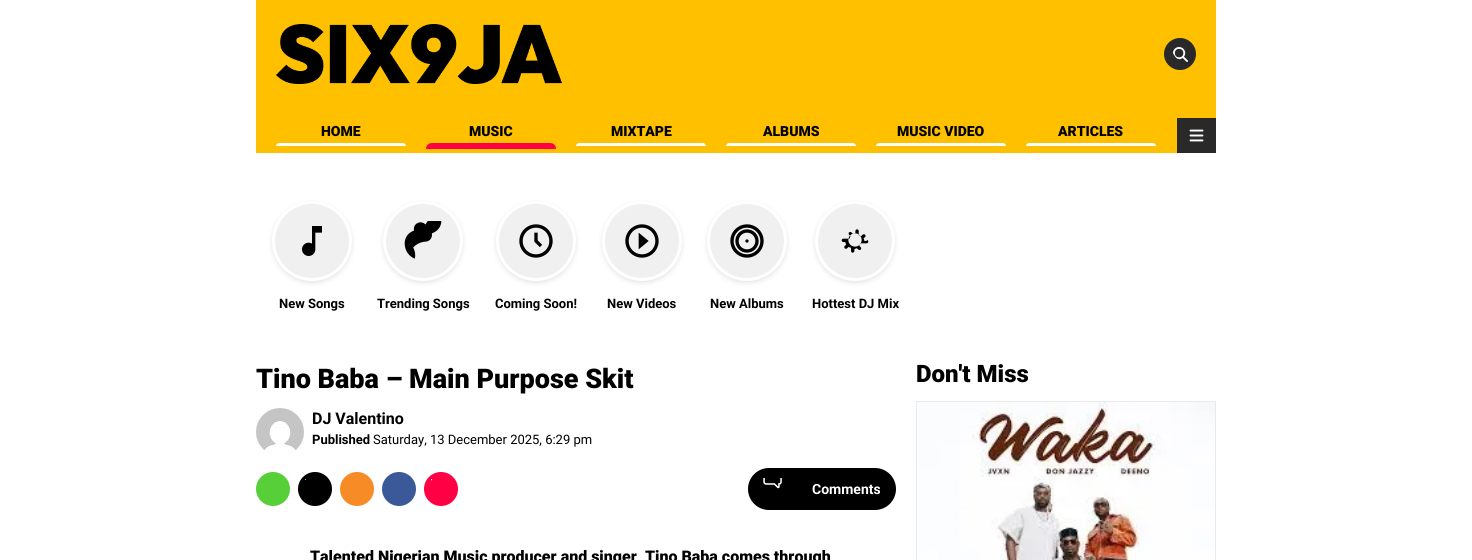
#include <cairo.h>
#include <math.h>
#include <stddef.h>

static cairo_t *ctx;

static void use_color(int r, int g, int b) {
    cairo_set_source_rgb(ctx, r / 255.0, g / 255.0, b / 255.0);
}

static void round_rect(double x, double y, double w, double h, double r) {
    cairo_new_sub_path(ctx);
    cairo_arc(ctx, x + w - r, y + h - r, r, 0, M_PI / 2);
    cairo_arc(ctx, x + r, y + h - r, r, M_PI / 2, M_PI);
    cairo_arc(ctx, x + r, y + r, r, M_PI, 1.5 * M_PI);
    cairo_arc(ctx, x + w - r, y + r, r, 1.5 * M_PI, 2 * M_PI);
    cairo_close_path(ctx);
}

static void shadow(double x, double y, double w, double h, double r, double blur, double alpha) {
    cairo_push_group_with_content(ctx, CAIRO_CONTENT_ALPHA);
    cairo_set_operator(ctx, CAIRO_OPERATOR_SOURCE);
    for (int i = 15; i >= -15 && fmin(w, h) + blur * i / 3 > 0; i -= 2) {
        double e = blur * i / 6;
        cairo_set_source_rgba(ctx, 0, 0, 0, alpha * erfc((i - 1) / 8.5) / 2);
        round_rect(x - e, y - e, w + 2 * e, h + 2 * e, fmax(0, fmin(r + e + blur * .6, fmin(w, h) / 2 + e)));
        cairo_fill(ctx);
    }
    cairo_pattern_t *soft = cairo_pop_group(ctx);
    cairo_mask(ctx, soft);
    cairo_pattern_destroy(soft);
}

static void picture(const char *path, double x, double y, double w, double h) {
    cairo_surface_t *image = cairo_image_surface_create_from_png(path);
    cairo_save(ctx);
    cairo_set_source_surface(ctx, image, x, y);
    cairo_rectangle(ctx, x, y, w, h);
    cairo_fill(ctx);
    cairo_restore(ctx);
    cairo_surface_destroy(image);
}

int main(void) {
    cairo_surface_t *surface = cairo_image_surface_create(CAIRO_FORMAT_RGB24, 1472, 560);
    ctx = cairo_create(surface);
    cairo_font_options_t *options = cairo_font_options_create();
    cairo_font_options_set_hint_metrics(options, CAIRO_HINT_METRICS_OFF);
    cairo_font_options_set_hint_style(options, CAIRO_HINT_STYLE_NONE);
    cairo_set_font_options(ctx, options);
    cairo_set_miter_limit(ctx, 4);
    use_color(255, 255, 255);
    cairo_paint(ctx);
    use_color(255, 192, 0);
    cairo_rectangle(ctx, 256, 0, 960, 153);
    cairo_fill(ctx);
    picture("img1.png", 276, 24, 286, 60);
    use_color(41, 41, 41);
    cairo_arc(ctx, 1180, 54, 16, 0, 2 * M_PI);
    cairo_fill(ctx);
    picture("img2.png", 1173, 47, 15, 15);
    cairo_rectangle(ctx, 1177, 118, 39, 35);
    cairo_fill(ctx);
    picture("img3.png", 1189, 129, 15, 13);
    cairo_select_font_face(ctx, "Roboto Black", CAIRO_FONT_SLANT_NORMAL, CAIRO_FONT_WEIGHT_NORMAL);
    cairo_set_font_size(ctx, 14);
    use_color(0, 0, 0);
    cairo_move_to(ctx, 321, 136);
    cairo_show_text(ctx, "HOME");
    use_color(255, 255, 255);
    cairo_new_path(ctx);
    cairo_move_to(ctx, 279, 143);
    cairo_line_to(ctx, 403, 143);
    cairo_curve_to(ctx, 404.5, 143, 406, 144.5, 406, 146);
    cairo_line_to(ctx, 276, 146);
    cairo_curve_to(ctx, 276, 144.5, 277.5, 143, 279, 143);
    cairo_close_path(ctx);
    cairo_fill(ctx);
    use_color(0, 0, 0);
    cairo_move_to(ctx, 469, 136);
    cairo_show_text(ctx, "MUSIC");
    use_color(255, 0, 68);
    cairo_new_path(ctx);
    cairo_move_to(ctx, 432, 143);
    cairo_line_to(ctx, 550, 143);
    cairo_curve_to(ctx, 553.5, 143, 556, 145.5, 556, 149);
    cairo_line_to(ctx, 426, 149);
    cairo_curve_to(ctx, 426, 145.5, 428.5, 143, 432, 143);
    cairo_close_path(ctx);
    cairo_fill(ctx);
    use_color(0, 0, 0);
    cairo_move_to(ctx, 611, 136);
    cairo_show_text(ctx, "MIXTAPE");
    use_color(255, 255, 255);
    cairo_new_path(ctx);
    cairo_move_to(ctx, 579, 143);
    cairo_line_to(ctx, 703, 143);
    cairo_curve_to(ctx, 704.5, 143, 706, 144.5, 706, 146);
    cairo_line_to(ctx, 576, 146);
    cairo_curve_to(ctx, 576, 144.5, 577.5, 143, 579, 143);
    cairo_close_path(ctx);
    cairo_fill(ctx);
    use_color(0, 0, 0);
    cairo_move_to(ctx, 763, 136);
    cairo_show_text(ctx, "ALBUMS");
    use_color(255, 255, 255);
    cairo_new_path(ctx);
    cairo_move_to(ctx, 729, 143);
    cairo_line_to(ctx, 853, 143);
    cairo_curve_to(ctx, 854.5, 143, 856, 144.5, 856, 146);
    cairo_line_to(ctx, 726, 146);
    cairo_curve_to(ctx, 726, 144.5, 727.5, 143, 729, 143);
    cairo_close_path(ctx);
    cairo_fill(ctx);
    use_color(0, 0, 0);
    cairo_move_to(ctx, 897, 136);
    cairo_show_text(ctx, "MUSIC VIDEO");
    use_color(255, 255, 255);
    cairo_new_path(ctx);
    cairo_move_to(ctx, 879, 143);
    cairo_line_to(ctx, 1003, 143);
    cairo_curve_to(ctx, 1004.5, 143, 1006, 144.5, 1006, 146);
    cairo_line_to(ctx, 876, 146);
    cairo_curve_to(ctx, 876, 144.5, 877.5, 143, 879, 143);
    cairo_close_path(ctx);
    cairo_fill(ctx);
    use_color(0, 0, 0);
    cairo_move_to(ctx, 1058, 136);
    cairo_show_text(ctx, "ARTICLES");
    use_color(255, 255, 255);
    cairo_new_path(ctx);
    cairo_move_to(ctx, 1029, 143);
    cairo_line_to(ctx, 1153, 143);
    cairo_curve_to(ctx, 1154.5, 143, 1156, 144.5, 1156, 146);
    cairo_line_to(ctx, 1026, 146);
    cairo_curve_to(ctx, 1026, 144.5, 1027.5, 143, 1029, 143);
    cairo_close_path(ctx);
    cairo_fill(ctx);
    use_color(0, 0, 0);
    shadow(272, 203, 80, 80, 40, 2.5, 0.1);
    use_color(240, 240, 240);
    cairo_arc(ctx, 312, 241, 38.5, 0, 2 * M_PI);
    cairo_fill_preserve(ctx);
    use_color(255, 255, 255);
    cairo_set_line_width(ctx, 3);
    cairo_stroke(ctx);
    picture("img4.png", 302, 226, 20, 30);
    cairo_select_font_face(ctx, "Roboto", CAIRO_FONT_SLANT_NORMAL, CAIRO_FONT_WEIGHT_BOLD);
    cairo_set_font_size(ctx, 13);
    use_color(0, 0, 0);
    cairo_move_to(ctx, 279, 308);
    cairo_show_text(ctx, "New Songs");
    use_color(0, 0, 0);
    shadow(383, 203, 80, 80, 40, 2.5, 0.1);
    use_color(240, 240, 240);
    cairo_arc(ctx, 423, 241, 38.5, 0, 2 * M_PI);
    cairo_fill_preserve(ctx);
    use_color(255, 255, 255);
    cairo_stroke(ctx);
    picture("img5.png", 404, 221, 38, 38);
    use_color(0, 0, 0);
    cairo_move_to(ctx, 377, 308);
    cairo_show_text(ctx, "Trending Songs");
    use_color(0, 0, 0);
    shadow(496, 203, 80, 80, 40, 2.5, 0.1);
    use_color(240, 240, 240);
    cairo_arc(ctx, 536, 241, 38.5, 0, 2 * M_PI);
    cairo_fill_preserve(ctx);
    use_color(255, 255, 255);
    cairo_stroke(ctx);
    picture("img6.png", 519, 224, 34, 34);
    use_color(0, 0, 0);
    cairo_move_to(ctx, 495, 308);
    cairo_show_text(ctx, "Coming Soon!");
    use_color(0, 0, 0);
    shadow(602, 203, 80, 80, 40, 2.5, 0.1);
    use_color(240, 240, 240);
    cairo_arc(ctx, 642, 241, 38.5, 0, 2 * M_PI);
    cairo_fill_preserve(ctx);
    use_color(255, 255, 255);
    cairo_stroke(ctx);
    picture("img7.png", 625, 224, 34, 34);
    use_color(0, 0, 0);
    cairo_move_to(ctx, 607, 308);
    cairo_show_text(ctx, "New Videos");
    use_color(0, 0, 0);
    shadow(707, 203, 80, 80, 40, 2.5, 0.1);
    use_color(240, 240, 240);
    cairo_arc(ctx, 747, 241, 38.5, 0, 2 * M_PI);
    cairo_fill_preserve(ctx);
    use_color(255, 255, 255);
    cairo_stroke(ctx);
    picture("img8.png", 730, 224, 34, 34);
    use_color(0, 0, 0);
    cairo_move_to(ctx, 710, 308);
    cairo_show_text(ctx, "New Albums");
    use_color(0, 0, 0);
    shadow(815, 203, 80, 80, 40, 2.5, 0.1);
    use_color(240, 240, 240);
    cairo_arc(ctx, 855, 241, 38.5, 0, 2 * M_PI);
    cairo_fill_preserve(ctx);
    use_color(255, 255, 255);
    cairo_stroke(ctx);
    picture("img9.png", 841, 229, 28, 24);
    use_color(0, 0, 0);
    cairo_move_to(ctx, 812, 308);
    cairo_show_text(ctx, "Hottest DJ Mix");
    cairo_select_font_face(ctx, "Roboto Black", CAIRO_FONT_SLANT_NORMAL, CAIRO_FONT_WEIGHT_NORMAL);
    cairo_set_font_size(ctx, 27);
    cairo_move_to(ctx, 256, 388);
    cairo_show_text(ctx, "Tino Baba – Main Purpose Skit");
    picture("img10.png", 256, 408, 48, 48);
    cairo_select_font_face(ctx, "Roboto", CAIRO_FONT_SLANT_NORMAL, CAIRO_FONT_WEIGHT_BOLD);
    cairo_set_font_size(ctx, 16);
    cairo_move_to(ctx, 312, 424);
    cairo_show_text(ctx, "DJ Valentino");
    cairo_set_font_size(ctx, 13);
    cairo_move_to(ctx, 312, 444);
    cairo_show_text(ctx, "Published");
    cairo_select_font_face(ctx, "Roboto", CAIRO_FONT_SLANT_NORMAL, CAIRO_FONT_WEIGHT_NORMAL);
    cairo_move_to(ctx, 373, 444);
    cairo_show_text(ctx, "Saturday, 13 December 2025, 6:29 pm");
    use_color(87, 207, 56);
    cairo_new_path(ctx);
    cairo_arc(ctx, 273, 489, 17, 0, 2 * M_PI);
    cairo_fill(ctx);
    use_color(0, 0, 0);
    cairo_arc(ctx, 315, 489, 17, 0, 2 * M_PI);
    cairo_fill(ctx);
    picture("img11.png", 305, 479, 2, 1);
    use_color(247, 139, 37);
    cairo_arc(ctx, 357, 489, 17, 0, 2 * M_PI);
    cairo_fill(ctx);
    use_color(59, 89, 152);
    cairo_arc(ctx, 399, 489, 17, 0, 2 * M_PI);
    cairo_fill(ctx);
    use_color(255, 0, 68);
    cairo_arc(ctx, 441, 489, 17, 0, 2 * M_PI);
    cairo_fill(ctx);
    picture("img12.png", 431, 479, 1, 2);
    use_color(0, 0, 0);
    round_rect(749, 469, 146, 40, 20);
    cairo_fill_preserve(ctx);
    cairo_set_line_width(ctx, 2);
    cairo_stroke(ctx);
    picture("img13.png", 763, 478, 19, 11);
    cairo_select_font_face(ctx, "Roboto", CAIRO_FONT_SLANT_NORMAL, CAIRO_FONT_WEIGHT_BOLD);
    cairo_set_font_size(ctx, 14);
    use_color(255, 255, 255);
    cairo_move_to(ctx, 812, 494);
    cairo_show_text(ctx, "Comments");
    cairo_select_font_face(ctx, "Roboto Black", CAIRO_FONT_SLANT_NORMAL, CAIRO_FONT_WEIGHT_NORMAL);
    cairo_set_font_size(ctx, 16);
    use_color(0, 0, 0);
    cairo_move_to(ctx, 310, 562);
    cairo_show_text(ctx, "Talented Nigerian Music producer and singer");
    cairo_move_to(ctx, 645, 562);
    cairo_show_text(ctx, "Tino Baba comes through");
    cairo_set_font_size(ctx, 24);
    cairo_move_to(ctx, 916, 382);
    cairo_show_text(ctx, "Don't Miss");
    cairo_rectangle(ctx, 916.5, 401.5, 299, 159);
    use_color(234, 234, 234);
    cairo_set_line_width(ctx, 1);
    cairo_stroke(ctx);
    picture("img14.png", 917, 402, 298, 158);
    cairo_surface_write_to_png(surface, "result.png");
    cairo_font_options_destroy(options);
    cairo_destroy(ctx);
    cairo_surface_destroy(surface);
    return 0;
}
